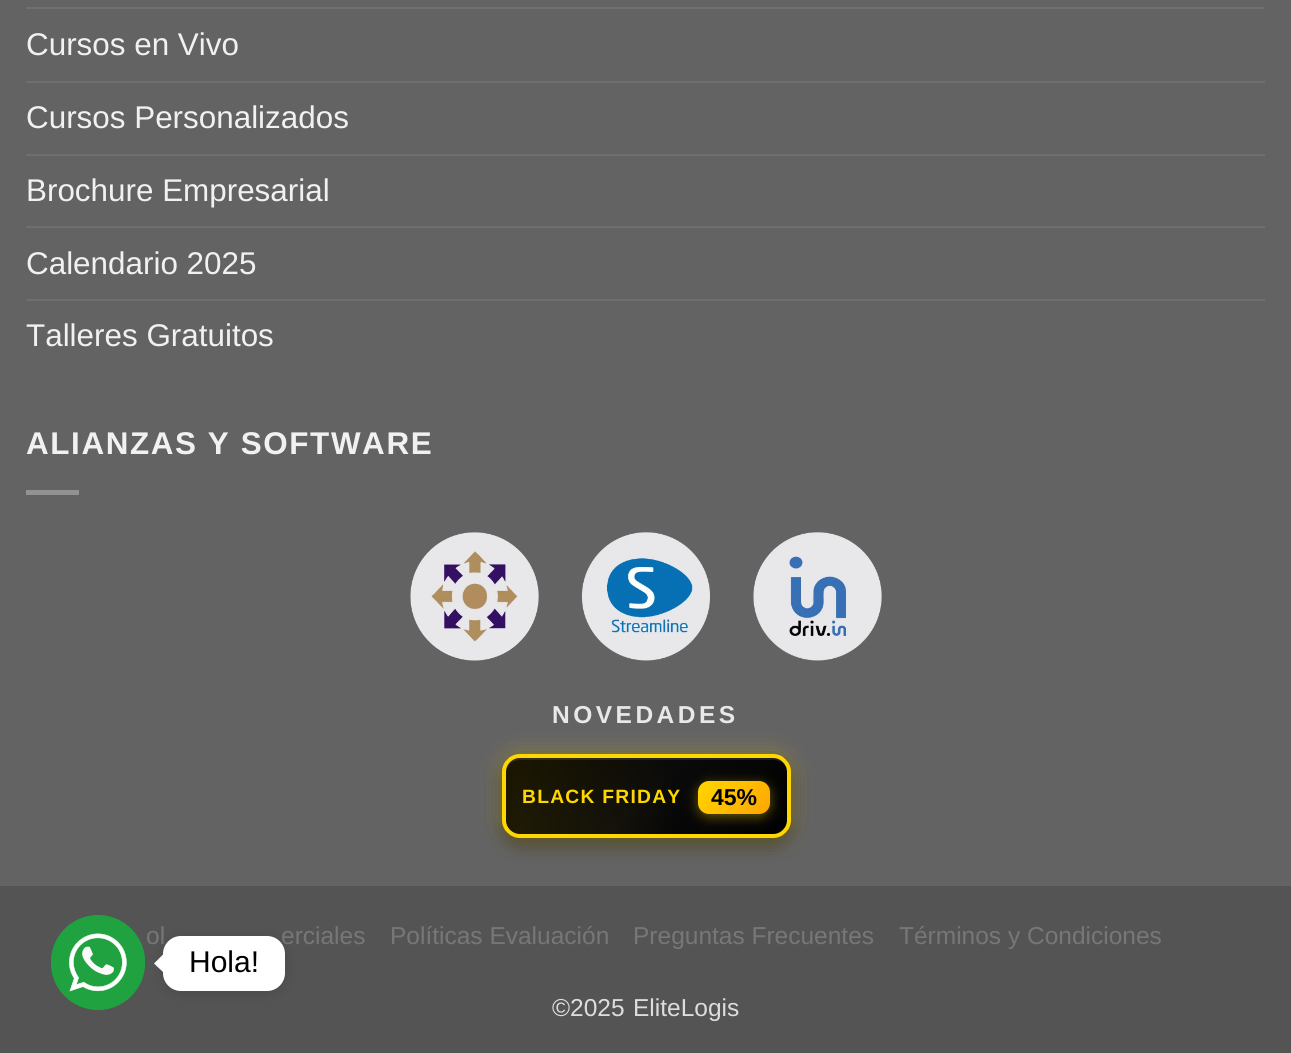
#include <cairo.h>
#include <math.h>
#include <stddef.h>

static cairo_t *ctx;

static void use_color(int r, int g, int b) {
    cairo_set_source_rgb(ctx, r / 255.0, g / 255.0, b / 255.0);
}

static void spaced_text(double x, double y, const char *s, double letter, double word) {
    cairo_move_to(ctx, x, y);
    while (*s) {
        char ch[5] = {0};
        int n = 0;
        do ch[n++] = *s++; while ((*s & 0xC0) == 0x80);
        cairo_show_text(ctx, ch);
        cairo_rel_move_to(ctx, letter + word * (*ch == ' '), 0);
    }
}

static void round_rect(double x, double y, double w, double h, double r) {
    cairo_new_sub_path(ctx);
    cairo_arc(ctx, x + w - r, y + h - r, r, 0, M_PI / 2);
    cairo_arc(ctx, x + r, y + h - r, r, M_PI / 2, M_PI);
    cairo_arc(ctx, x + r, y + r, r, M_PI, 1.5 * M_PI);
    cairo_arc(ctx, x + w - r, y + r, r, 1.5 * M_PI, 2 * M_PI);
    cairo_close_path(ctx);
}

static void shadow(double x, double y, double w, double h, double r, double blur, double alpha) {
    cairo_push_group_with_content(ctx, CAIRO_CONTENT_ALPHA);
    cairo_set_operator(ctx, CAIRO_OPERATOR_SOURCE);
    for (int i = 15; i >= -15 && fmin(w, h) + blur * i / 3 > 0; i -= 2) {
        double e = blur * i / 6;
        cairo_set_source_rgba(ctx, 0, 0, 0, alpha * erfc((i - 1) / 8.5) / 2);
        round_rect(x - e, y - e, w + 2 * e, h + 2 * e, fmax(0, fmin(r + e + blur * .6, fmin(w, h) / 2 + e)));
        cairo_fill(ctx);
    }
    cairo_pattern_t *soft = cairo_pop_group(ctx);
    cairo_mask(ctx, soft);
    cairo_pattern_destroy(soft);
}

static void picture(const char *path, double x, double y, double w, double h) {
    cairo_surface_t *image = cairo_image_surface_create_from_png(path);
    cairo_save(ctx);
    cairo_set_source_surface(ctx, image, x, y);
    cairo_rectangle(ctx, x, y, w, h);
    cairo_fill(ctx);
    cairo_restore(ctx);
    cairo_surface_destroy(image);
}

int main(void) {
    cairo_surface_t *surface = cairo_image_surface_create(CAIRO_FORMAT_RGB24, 1291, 1053);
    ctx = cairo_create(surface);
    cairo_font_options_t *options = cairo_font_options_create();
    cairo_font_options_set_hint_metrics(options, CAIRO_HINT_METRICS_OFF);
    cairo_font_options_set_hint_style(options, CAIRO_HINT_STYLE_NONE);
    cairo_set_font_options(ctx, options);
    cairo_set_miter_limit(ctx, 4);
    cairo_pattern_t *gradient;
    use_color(99, 99, 99);
    cairo_paint(ctx);
    use_color(111, 111, 111);
    cairo_rectangle(ctx, 26, 7, 1239, 2);
    cairo_fill(ctx);
    cairo_select_font_face(ctx, "Liberation Sans", CAIRO_FONT_SLANT_NORMAL, CAIRO_FONT_WEIGHT_NORMAL);
    cairo_set_font_size(ctx, 31.4);
    use_color(241, 241, 241);
    cairo_move_to(ctx, 26, 55);
    cairo_show_text(ctx, "Cursos en Vivo");
    use_color(111, 111, 111);
    cairo_rectangle(ctx, 26, 81, 1239, 2);
    cairo_fill(ctx);
    use_color(241, 241, 241);
    cairo_move_to(ctx, 26, 128);
    cairo_show_text(ctx, "Cursos Personalizados");
    use_color(111, 111, 111);
    cairo_rectangle(ctx, 26, 154, 1239, 2);
    cairo_fill(ctx);
    use_color(241, 241, 241);
    cairo_move_to(ctx, 26, 201);
    cairo_show_text(ctx, "Brochure Empresarial");
    use_color(111, 111, 111);
    cairo_rectangle(ctx, 26, 226, 1239, 2);
    cairo_fill(ctx);
    use_color(241, 241, 241);
    cairo_move_to(ctx, 26, 274);
    cairo_show_text(ctx, "Calendario 2025");
    use_color(111, 111, 111);
    cairo_rectangle(ctx, 26, 299, 1239, 2);
    cairo_fill(ctx);
    use_color(241, 241, 241);
    cairo_move_to(ctx, 26, 346);
    cairo_show_text(ctx, "Talleres Gratuitos");
    cairo_select_font_face(ctx, "Liberation Sans", CAIRO_FONT_SLANT_NORMAL, CAIRO_FONT_WEIGHT_BOLD);
    spaced_text(26, 454, "ALIANZAS Y SOFTWARE", 1.6, 0);
    use_color(146, 146, 146);
    cairo_rectangle(ctx, 26, 490, 53, 5);
    cairo_fill(ctx);
    picture("img1.png", 410, 532, 129, 129);
    picture("img2.png", 581, 532, 129, 129);
    picture("img3.png", 753, 532, 129, 129);
    cairo_set_font_size(ctx, 24.5);
    use_color(232, 232, 232);
    spaced_text(552, 723, "NOVEDADES", 3.5, 0);
    use_color(0, 0, 0);
    shadow(502, 761, 289, 84, 18, 9, 0.5);
    use_color(255, 215, 0);
    shadow(502, 754, 289, 84, 18, 10.5, 0.35);
    cairo_save(ctx);
    round_rect(502, 754, 289, 84, 18);
    cairo_clip(ctx);
    gradient = cairo_pattern_create_linear(557, 707, 736, 886);
    cairo_pattern_add_color_stop_rgba(gradient, 0, 0, 0, 0, 1);
    cairo_pattern_add_color_stop_rgba(gradient, 0.5, 0.039, 0.039, 0.039, 1);
    cairo_pattern_add_color_stop_rgba(gradient, 1, 0, 0, 0, 1);
    cairo_set_source(ctx, gradient);
    cairo_pattern_destroy(gradient);
    cairo_rectangle(ctx, 506, 758, 282, 77);
    cairo_fill(ctx);
    cairo_restore(ctx);
    cairo_set_source_rgba(ctx, 1, 1, 1, 0.1);
    cairo_new_path(ctx);
    cairo_move_to(ctx, 520, 760);
    cairo_line_to(ctx, 774, 760);
    cairo_curve_to(ctx, 781, 760, 788, 766, 788, 774);
    cairo_line_to(ctx, 788, 772);
    cairo_curve_to(ctx, 788, 764, 782, 758, 774, 758);
    cairo_line_to(ctx, 520, 758);
    cairo_curve_to(ctx, 512, 758, 506, 764, 506, 772);
    cairo_line_to(ctx, 506, 774);
    cairo_curve_to(ctx, 506, 766, 512, 760, 520, 760);
    cairo_close_path(ctx);
    cairo_fill(ctx);
    round_rect(504, 756, 285, 80, 16);
    use_color(255, 215, 0);
    cairo_set_line_width(ctx, 4);
    cairo_stroke(ctx);
    gradient = cairo_pattern_create_linear(123, 726, 912, 726);
    cairo_pattern_add_color_stop_rgba(gradient, 0.35, 1, 0.843, 0, 0);
    cairo_pattern_add_color_stop_rgba(gradient, 0.5, 1, 0.843, 0, 0.1);
    cairo_pattern_add_color_stop_rgba(gradient, 0.7, 1, 0.843, 0, 0);
    cairo_set_source(ctx, gradient);
    cairo_pattern_destroy(gradient);
    cairo_new_path(ctx);
    cairo_move_to(ctx, 520, 758);
    cairo_curve_to(ctx, 512, 758, 506, 764, 506, 772);
    cairo_line_to(ctx, 506, 821);
    cairo_curve_to(ctx, 506, 829, 512, 835, 520, 835);
    cairo_line_to(ctx, 774, 835);
    cairo_curve_to(ctx, 782, 835, 788, 829, 788, 821);
    cairo_line_to(ctx, 788, 772);
    cairo_curve_to(ctx, 788, 764, 782, 758, 774, 758);
    cairo_close_path(ctx);
    cairo_fill(ctx);
    cairo_set_font_size(ctx, 19.25);
    use_color(255, 215, 0);
    spaced_text(522, 803, "BLACK FRIDAY", 1.25, 0);
    use_color(255, 215, 0);
    shadow(698, 784, 72, 33, 11, 6, 0.4);
    gradient = cairo_pattern_create_linear(708, 771, 760, 823);
    cairo_pattern_add_color_stop_rgba(gradient, 0, 1, 0.843, 0, 1);
    cairo_pattern_add_color_stop_rgba(gradient, 1, 1, 0.647, 0, 1);
    cairo_set_source(ctx, gradient);
    cairo_pattern_destroy(gradient);
    round_rect(698, 781, 72, 33, 11);
    cairo_fill(ctx);
    cairo_set_font_size(ctx, 23);
    use_color(0, 0, 0);
    cairo_move_to(ctx, 711, 805);
    cairo_show_text(ctx, "45%");
    use_color(84, 84, 84);
    cairo_rectangle(ctx, 0, 886, 1291, 167);
    cairo_fill(ctx);
    cairo_select_font_face(ctx, "Liberation Sans", CAIRO_FONT_SLANT_NORMAL, CAIRO_FONT_WEIGHT_NORMAL);
    cairo_set_font_size(ctx, 24.5);
    use_color(119, 119, 119);
    cairo_move_to(ctx, 146, 944);
    cairo_show_text(ctx, "ol");
    cairo_move_to(ctx, 281, 944);
    cairo_show_text(ctx, "erciales");
    cairo_move_to(ctx, 390, 944);
    cairo_show_text(ctx, "Políticas Evaluación");
    cairo_move_to(ctx, 633, 944);
    cairo_show_text(ctx, "Preguntas Frecuentes");
    cairo_move_to(ctx, 899, 944);
    cairo_show_text(ctx, "Términos y Condiciones");
    use_color(221, 221, 221);
    cairo_move_to(ctx, 552, 1016);
    cairo_show_text(ctx, "©2025");
    cairo_move_to(ctx, 633, 1016);
    cairo_show_text(ctx, "EliteLogis");
    use_color(33, 162, 65);
    round_rect(51, 915, 94, 95, 47);
    cairo_fill(ctx);
    picture("img4.png", 51, 915, 94, 95);
    use_color(0, 0, 0);
    shadow(163, 938, 122, 54, 18, 7, 0.15);
    use_color(255, 255, 255);
    round_rect(163, 936, 122, 55, 18);
    cairo_fill(ctx);
    cairo_new_path(ctx);
    cairo_move_to(ctx, 163, 954.5);
    cairo_line_to(ctx, 163, 972);
    cairo_line_to(ctx, 154, 963.5);
    cairo_close_path(ctx);
    cairo_fill(ctx);
    cairo_set_font_size(ctx, 30);
    use_color(0, 0, 0);
    cairo_move_to(ctx, 189, 972);
    cairo_show_text(ctx, "Hola!");
    cairo_surface_write_to_png(surface, "result.png");
    cairo_font_options_destroy(options);
    cairo_destroy(ctx);
    cairo_surface_destroy(surface);
    return 0;
}
